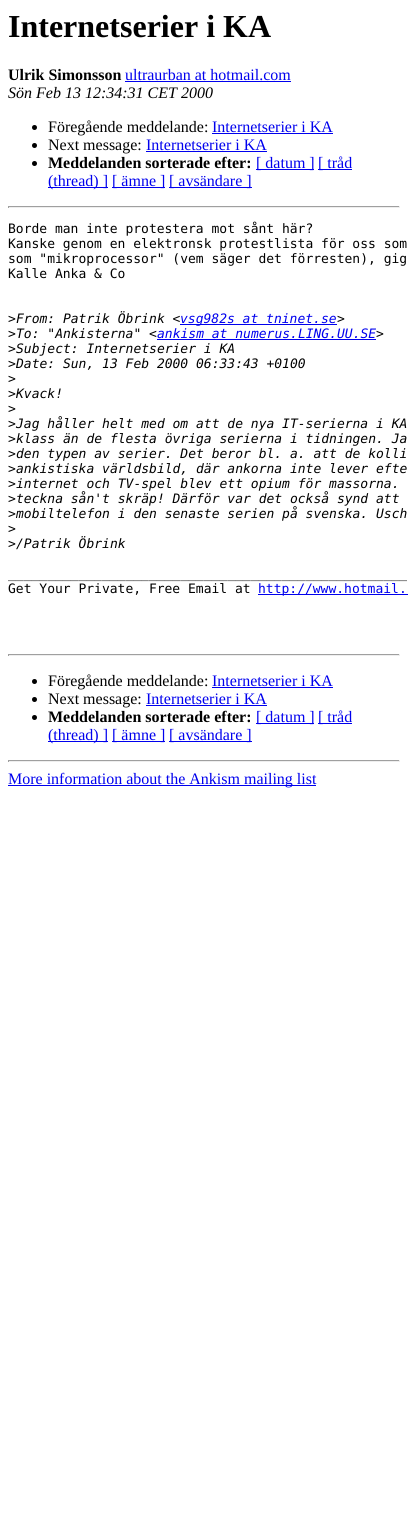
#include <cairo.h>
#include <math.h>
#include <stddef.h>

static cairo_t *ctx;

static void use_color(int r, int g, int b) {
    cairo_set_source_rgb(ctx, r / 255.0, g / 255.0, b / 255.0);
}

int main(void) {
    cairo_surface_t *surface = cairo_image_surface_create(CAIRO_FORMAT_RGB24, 408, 1531);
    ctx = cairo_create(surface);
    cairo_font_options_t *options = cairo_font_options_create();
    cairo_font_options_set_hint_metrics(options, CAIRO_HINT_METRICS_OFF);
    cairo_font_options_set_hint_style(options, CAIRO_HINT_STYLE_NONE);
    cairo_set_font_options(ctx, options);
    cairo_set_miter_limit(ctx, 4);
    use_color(255, 255, 255);
    cairo_paint(ctx);
    cairo_select_font_face(ctx, "Liberation Serif", CAIRO_FONT_SLANT_NORMAL, CAIRO_FONT_WEIGHT_BOLD);
    cairo_set_font_size(ctx, 32);
    use_color(0, 0, 0);
    cairo_move_to(ctx, 8, 37);
    cairo_show_text(ctx, "Internetserier i KA");
    cairo_set_font_size(ctx, 16);
    cairo_move_to(ctx, 8, 80);
    cairo_show_text(ctx, "Ulrik Simonsson");
    cairo_select_font_face(ctx, "Liberation Serif", CAIRO_FONT_SLANT_NORMAL, CAIRO_FONT_WEIGHT_NORMAL);
    use_color(0, 0, 238);
    cairo_move_to(ctx, 125, 80);
    cairo_show_text(ctx, "ultraurban at hotmail.com");
    cairo_rectangle(ctx, 125, 81, 166, 1);
    cairo_fill(ctx);
    cairo_select_font_face(ctx, "Liberation Serif", CAIRO_FONT_SLANT_ITALIC, CAIRO_FONT_WEIGHT_NORMAL);
    use_color(0, 0, 0);
    cairo_move_to(ctx, 8, 98);
    cairo_show_text(ctx, "Sön Feb 13 12:34:31 CET 2000");
    cairo_new_path(ctx);
    cairo_arc(ctx, 34.5, 127.5, 2.5, 0, 2 * M_PI);
    cairo_fill(ctx);
    cairo_select_font_face(ctx, "Liberation Serif", CAIRO_FONT_SLANT_NORMAL, CAIRO_FONT_WEIGHT_NORMAL);
    cairo_move_to(ctx, 48, 132);
    cairo_show_text(ctx, "Föregående meddelande:");
    use_color(0, 0, 238);
    cairo_move_to(ctx, 212, 132);
    cairo_show_text(ctx, "Internetserier i KA");
    cairo_rectangle(ctx, 212, 133, 121, 1);
    cairo_fill(ctx);
    use_color(0, 0, 0);
    cairo_arc(ctx, 34.5, 145.5, 2.5, 0, 2 * M_PI);
    cairo_fill(ctx);
    cairo_move_to(ctx, 48, 150);
    cairo_show_text(ctx, "Next message:");
    use_color(0, 0, 238);
    cairo_move_to(ctx, 146, 150);
    cairo_show_text(ctx, "Internetserier i KA");
    cairo_rectangle(ctx, 146, 151, 121, 1);
    cairo_fill(ctx);
    use_color(0, 0, 0);
    cairo_arc(ctx, 34.5, 163.5, 2.5, 0, 2 * M_PI);
    cairo_fill(ctx);
    cairo_select_font_face(ctx, "Liberation Serif", CAIRO_FONT_SLANT_NORMAL, CAIRO_FONT_WEIGHT_BOLD);
    cairo_move_to(ctx, 48, 168);
    cairo_show_text(ctx, "Meddelanden sorterade efter:");
    use_color(0, 0, 238);
    cairo_rectangle(ctx, 256, 169, 58, 1);
    cairo_fill(ctx);
    cairo_select_font_face(ctx, "Liberation Serif", CAIRO_FONT_SLANT_NORMAL, CAIRO_FONT_WEIGHT_NORMAL);
    cairo_move_to(ctx, 256, 168);
    cairo_show_text(ctx, "[ datum ]");
    cairo_rectangle(ctx, 318, 169, 34, 1);
    cairo_fill(ctx);
    cairo_move_to(ctx, 318, 168);
    cairo_show_text(ctx, "[ tråd");
    cairo_rectangle(ctx, 48, 187, 60, 1);
    cairo_fill(ctx);
    cairo_move_to(ctx, 48, 186);
    cairo_show_text(ctx, "(thread) ]");
    cairo_rectangle(ctx, 112, 187, 53, 1);
    cairo_fill(ctx);
    cairo_move_to(ctx, 112, 186);
    cairo_show_text(ctx, "[ ämne ]");
    cairo_rectangle(ctx, 169, 187, 83, 1);
    cairo_fill(ctx);
    cairo_move_to(ctx, 169, 186);
    cairo_show_text(ctx, "[ avsändare ]");
    use_color(159, 159, 159);
    cairo_rectangle(ctx, 8, 206, 392, 1);
    cairo_fill(ctx);
    use_color(238, 238, 238);
    cairo_rectangle(ctx, 399, 206, 1, 2);
    cairo_fill(ctx);
    cairo_rectangle(ctx, 8, 207, 392, 1);
    cairo_fill(ctx);
    use_color(159, 159, 159);
    cairo_rectangle(ctx, 8, 206, 1, 2);
    cairo_fill(ctx);
    cairo_select_font_face(ctx, "DejaVu Sans Mono", CAIRO_FONT_SLANT_NORMAL, CAIRO_FONT_WEIGHT_NORMAL);
    cairo_set_font_size(ctx, 13);
    use_color(0, 0, 0);
    cairo_move_to(ctx, 8, 233);
    cairo_show_text(ctx, "Borde man inte protestera mot sånt här?");
    cairo_move_to(ctx, 8, 248);
    cairo_show_text(ctx, "Kanske genom en elektronsk protestlista för oss som");
    cairo_move_to(ctx, 8, 263);
    cairo_show_text(ctx, "som \"mikroprocessor\" (vem säger det förresten), gig");
    cairo_move_to(ctx, 8, 278);
    cairo_show_text(ctx, "Kalle Anka & Co");
    cairo_move_to(ctx, 8, 323);
    cairo_show_text(ctx, ">");
    cairo_select_font_face(ctx, "DejaVu Sans Mono", CAIRO_FONT_SLANT_ITALIC, CAIRO_FONT_WEIGHT_NORMAL);
    cairo_move_to(ctx, 16, 323);
    cairo_show_text(ctx, "From: Patrik Öbrink <");
    use_color(0, 0, 238);
    cairo_rectangle(ctx, 180, 324, 157, 1);
    cairo_fill(ctx);
    cairo_move_to(ctx, 180, 323);
    cairo_show_text(ctx, "vsg982s at tninet.se");
    use_color(0, 0, 0);
    cairo_move_to(ctx, 337, 323);
    cairo_show_text(ctx, ">");
    cairo_select_font_face(ctx, "DejaVu Sans Mono", CAIRO_FONT_SLANT_NORMAL, CAIRO_FONT_WEIGHT_NORMAL);
    cairo_move_to(ctx, 8, 338);
    cairo_show_text(ctx, ">");
    cairo_select_font_face(ctx, "DejaVu Sans Mono", CAIRO_FONT_SLANT_ITALIC, CAIRO_FONT_WEIGHT_NORMAL);
    cairo_move_to(ctx, 16, 338);
    cairo_show_text(ctx, "To: \"Ankisterna\" <");
    use_color(0, 0, 238);
    cairo_move_to(ctx, 157, 338);
    cairo_show_text(ctx, "ankism at numerus.LING.UU.SE");
    use_color(0, 0, 0);
    cairo_move_to(ctx, 376, 338);
    cairo_show_text(ctx, ">");
    use_color(0, 0, 238);
    cairo_rectangle(ctx, 157, 339, 219, 1);
    cairo_fill(ctx);
    cairo_select_font_face(ctx, "DejaVu Sans Mono", CAIRO_FONT_SLANT_NORMAL, CAIRO_FONT_WEIGHT_NORMAL);
    use_color(0, 0, 0);
    cairo_move_to(ctx, 8, 353);
    cairo_show_text(ctx, ">");
    cairo_select_font_face(ctx, "DejaVu Sans Mono", CAIRO_FONT_SLANT_ITALIC, CAIRO_FONT_WEIGHT_NORMAL);
    cairo_move_to(ctx, 16, 353);
    cairo_show_text(ctx, "Subject: Internetserier i KA");
    cairo_select_font_face(ctx, "DejaVu Sans Mono", CAIRO_FONT_SLANT_NORMAL, CAIRO_FONT_WEIGHT_NORMAL);
    cairo_move_to(ctx, 8, 368);
    cairo_show_text(ctx, ">");
    cairo_select_font_face(ctx, "DejaVu Sans Mono", CAIRO_FONT_SLANT_ITALIC, CAIRO_FONT_WEIGHT_NORMAL);
    cairo_move_to(ctx, 16, 368);
    cairo_show_text(ctx, "Date: Sun, 13 Feb 2000 06:33:43 +0100");
    cairo_select_font_face(ctx, "DejaVu Sans Mono", CAIRO_FONT_SLANT_NORMAL, CAIRO_FONT_WEIGHT_NORMAL);
    cairo_move_to(ctx, 8, 383);
    cairo_show_text(ctx, ">");
    cairo_move_to(ctx, 8, 398);
    cairo_show_text(ctx, ">");
    cairo_select_font_face(ctx, "DejaVu Sans Mono", CAIRO_FONT_SLANT_ITALIC, CAIRO_FONT_WEIGHT_NORMAL);
    cairo_move_to(ctx, 16, 398);
    cairo_show_text(ctx, "Kvack!");
    cairo_select_font_face(ctx, "DejaVu Sans Mono", CAIRO_FONT_SLANT_NORMAL, CAIRO_FONT_WEIGHT_NORMAL);
    cairo_move_to(ctx, 8, 413);
    cairo_show_text(ctx, ">");
    cairo_move_to(ctx, 8, 428);
    cairo_show_text(ctx, ">");
    cairo_select_font_face(ctx, "DejaVu Sans Mono", CAIRO_FONT_SLANT_ITALIC, CAIRO_FONT_WEIGHT_NORMAL);
    cairo_move_to(ctx, 16, 428);
    cairo_show_text(ctx, "Jag håller helt med om att de nya IT-serierna i KA");
    cairo_select_font_face(ctx, "DejaVu Sans Mono", CAIRO_FONT_SLANT_NORMAL, CAIRO_FONT_WEIGHT_NORMAL);
    cairo_move_to(ctx, 8, 443);
    cairo_show_text(ctx, ">");
    cairo_select_font_face(ctx, "DejaVu Sans Mono", CAIRO_FONT_SLANT_ITALIC, CAIRO_FONT_WEIGHT_NORMAL);
    cairo_move_to(ctx, 16, 443);
    cairo_show_text(ctx, "klass än de flesta övriga serierna i tidningen. Ja");
    cairo_select_font_face(ctx, "DejaVu Sans Mono", CAIRO_FONT_SLANT_NORMAL, CAIRO_FONT_WEIGHT_NORMAL);
    cairo_move_to(ctx, 8, 458);
    cairo_show_text(ctx, ">");
    cairo_select_font_face(ctx, "DejaVu Sans Mono", CAIRO_FONT_SLANT_ITALIC, CAIRO_FONT_WEIGHT_NORMAL);
    cairo_move_to(ctx, 16, 458);
    cairo_show_text(ctx, "den typen av serier. Det beror bl. a. att de kolli");
    cairo_select_font_face(ctx, "DejaVu Sans Mono", CAIRO_FONT_SLANT_NORMAL, CAIRO_FONT_WEIGHT_NORMAL);
    cairo_move_to(ctx, 8, 473);
    cairo_show_text(ctx, ">");
    cairo_select_font_face(ctx, "DejaVu Sans Mono", CAIRO_FONT_SLANT_ITALIC, CAIRO_FONT_WEIGHT_NORMAL);
    cairo_move_to(ctx, 16, 473);
    cairo_show_text(ctx, "ankistiska världsbild, där ankorna inte lever efte");
    cairo_select_font_face(ctx, "DejaVu Sans Mono", CAIRO_FONT_SLANT_NORMAL, CAIRO_FONT_WEIGHT_NORMAL);
    cairo_move_to(ctx, 8, 488);
    cairo_show_text(ctx, ">");
    cairo_select_font_face(ctx, "DejaVu Sans Mono", CAIRO_FONT_SLANT_ITALIC, CAIRO_FONT_WEIGHT_NORMAL);
    cairo_move_to(ctx, 16, 488);
    cairo_show_text(ctx, "internet och TV-spel blev ett opium för massorna.");
    cairo_select_font_face(ctx, "DejaVu Sans Mono", CAIRO_FONT_SLANT_NORMAL, CAIRO_FONT_WEIGHT_NORMAL);
    cairo_move_to(ctx, 8, 503);
    cairo_show_text(ctx, ">");
    cairo_select_font_face(ctx, "DejaVu Sans Mono", CAIRO_FONT_SLANT_ITALIC, CAIRO_FONT_WEIGHT_NORMAL);
    cairo_move_to(ctx, 16, 503);
    cairo_show_text(ctx, "teckna sån't skräp! Därför var det också synd att");
    cairo_select_font_face(ctx, "DejaVu Sans Mono", CAIRO_FONT_SLANT_NORMAL, CAIRO_FONT_WEIGHT_NORMAL);
    cairo_move_to(ctx, 8, 518);
    cairo_show_text(ctx, ">");
    cairo_select_font_face(ctx, "DejaVu Sans Mono", CAIRO_FONT_SLANT_ITALIC, CAIRO_FONT_WEIGHT_NORMAL);
    cairo_move_to(ctx, 16, 518);
    cairo_show_text(ctx, "mobiltelefon i den senaste serien på svenska. Usch");
    cairo_select_font_face(ctx, "DejaVu Sans Mono", CAIRO_FONT_SLANT_NORMAL, CAIRO_FONT_WEIGHT_NORMAL);
    cairo_move_to(ctx, 8, 533);
    cairo_show_text(ctx, ">");
    cairo_move_to(ctx, 8, 548);
    cairo_show_text(ctx, ">");
    cairo_select_font_face(ctx, "DejaVu Sans Mono", CAIRO_FONT_SLANT_ITALIC, CAIRO_FONT_WEIGHT_NORMAL);
    cairo_move_to(ctx, 16, 548);
    cairo_show_text(ctx, "/Patrik Öbrink");
    cairo_select_font_face(ctx, "DejaVu Sans Mono", CAIRO_FONT_SLANT_NORMAL, CAIRO_FONT_WEIGHT_NORMAL);
    cairo_move_to(ctx, 8, 578);
    cairo_show_text(ctx, "___________________________________________________");
    cairo_move_to(ctx, 8, 593);
    cairo_show_text(ctx, "Get Your Private, Free Email at");
    use_color(0, 0, 238);
    cairo_rectangle(ctx, 258, 594, 150, 1);
    cairo_fill(ctx);
    cairo_move_to(ctx, 258, 593);
    cairo_show_text(ctx, "http://www.hotmail.");
    use_color(159, 159, 159);
    cairo_rectangle(ctx, 8, 654, 392, 1);
    cairo_fill(ctx);
    use_color(238, 238, 238);
    cairo_rectangle(ctx, 399, 654, 1, 2);
    cairo_fill(ctx);
    cairo_rectangle(ctx, 8, 655, 392, 1);
    cairo_fill(ctx);
    use_color(159, 159, 159);
    cairo_rectangle(ctx, 8, 654, 1, 2);
    cairo_fill(ctx);
    use_color(0, 0, 0);
    cairo_arc(ctx, 34.5, 681.5, 2.5, 0, 2 * M_PI);
    cairo_fill(ctx);
    cairo_select_font_face(ctx, "Liberation Serif", CAIRO_FONT_SLANT_NORMAL, CAIRO_FONT_WEIGHT_NORMAL);
    cairo_set_font_size(ctx, 16);
    cairo_move_to(ctx, 48, 686);
    cairo_show_text(ctx, "Föregående meddelande:");
    use_color(0, 0, 238);
    cairo_move_to(ctx, 212, 686);
    cairo_show_text(ctx, "Internetserier i KA");
    cairo_rectangle(ctx, 212, 687, 121, 1);
    cairo_fill(ctx);
    use_color(0, 0, 0);
    cairo_arc(ctx, 34.5, 699.5, 2.5, 0, 2 * M_PI);
    cairo_fill(ctx);
    cairo_move_to(ctx, 48, 704);
    cairo_show_text(ctx, "Next message:");
    use_color(0, 0, 238);
    cairo_move_to(ctx, 146, 704);
    cairo_show_text(ctx, "Internetserier i KA");
    cairo_rectangle(ctx, 146, 705, 121, 1);
    cairo_fill(ctx);
    use_color(0, 0, 0);
    cairo_arc(ctx, 34.5, 717.5, 2.5, 0, 2 * M_PI);
    cairo_fill(ctx);
    cairo_select_font_face(ctx, "Liberation Serif", CAIRO_FONT_SLANT_NORMAL, CAIRO_FONT_WEIGHT_BOLD);
    cairo_move_to(ctx, 48, 722);
    cairo_show_text(ctx, "Meddelanden sorterade efter:");
    use_color(0, 0, 238);
    cairo_rectangle(ctx, 256, 723, 58, 1);
    cairo_fill(ctx);
    cairo_select_font_face(ctx, "Liberation Serif", CAIRO_FONT_SLANT_NORMAL, CAIRO_FONT_WEIGHT_NORMAL);
    cairo_move_to(ctx, 256, 722);
    cairo_show_text(ctx, "[ datum ]");
    cairo_rectangle(ctx, 318, 723, 34, 1);
    cairo_fill(ctx);
    cairo_move_to(ctx, 318, 722);
    cairo_show_text(ctx, "[ tråd");
    cairo_rectangle(ctx, 48, 741, 60, 1);
    cairo_fill(ctx);
    cairo_move_to(ctx, 48, 740);
    cairo_show_text(ctx, "(thread) ]");
    cairo_rectangle(ctx, 112, 741, 53, 1);
    cairo_fill(ctx);
    cairo_move_to(ctx, 112, 740);
    cairo_show_text(ctx, "[ ämne ]");
    cairo_rectangle(ctx, 169, 741, 83, 1);
    cairo_fill(ctx);
    cairo_move_to(ctx, 169, 740);
    cairo_show_text(ctx, "[ avsändare ]");
    use_color(159, 159, 159);
    cairo_rectangle(ctx, 8, 760, 392, 1);
    cairo_fill(ctx);
    use_color(238, 238, 238);
    cairo_rectangle(ctx, 399, 760, 1, 2);
    cairo_fill(ctx);
    cairo_rectangle(ctx, 8, 761, 392, 1);
    cairo_fill(ctx);
    use_color(159, 159, 159);
    cairo_rectangle(ctx, 8, 760, 1, 2);
    cairo_fill(ctx);
    use_color(0, 0, 238);
    cairo_rectangle(ctx, 8, 785, 308, 1);
    cairo_fill(ctx);
    cairo_move_to(ctx, 8, 784);
    cairo_show_text(ctx, "More information about the Ankism mailing list");
    cairo_surface_write_to_png(surface, "result.png");
    cairo_font_options_destroy(options);
    cairo_destroy(ctx);
    cairo_surface_destroy(surface);
    return 0;
}
